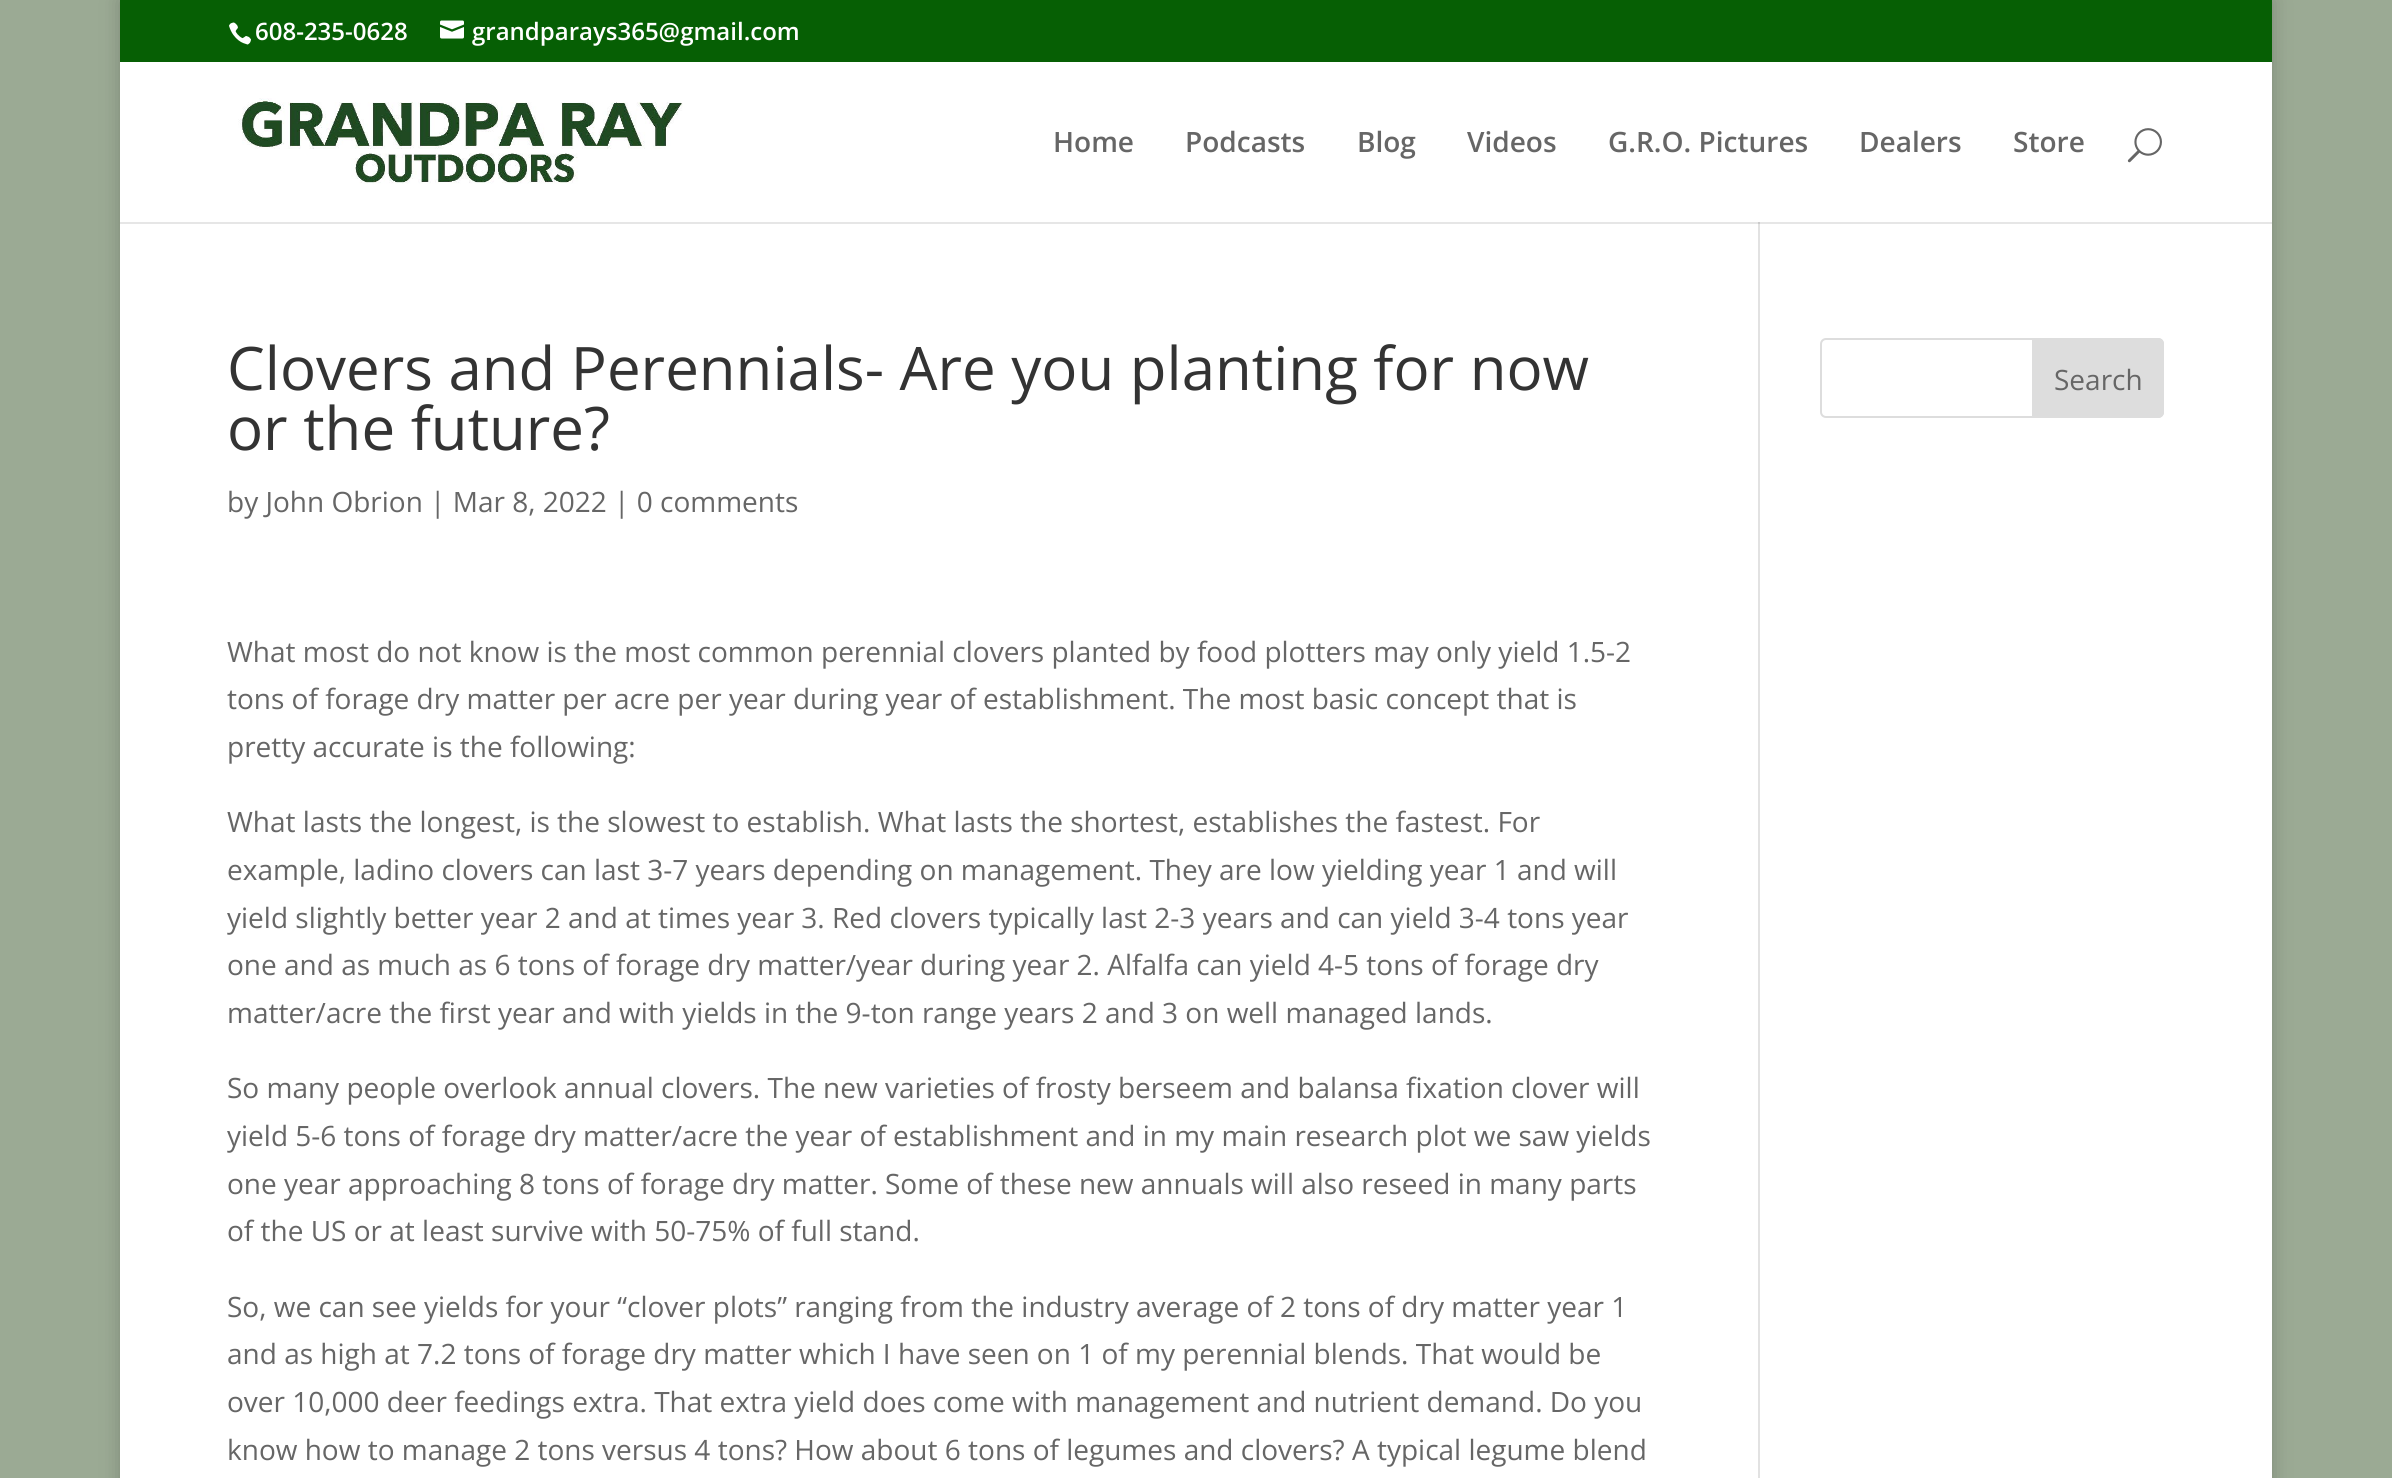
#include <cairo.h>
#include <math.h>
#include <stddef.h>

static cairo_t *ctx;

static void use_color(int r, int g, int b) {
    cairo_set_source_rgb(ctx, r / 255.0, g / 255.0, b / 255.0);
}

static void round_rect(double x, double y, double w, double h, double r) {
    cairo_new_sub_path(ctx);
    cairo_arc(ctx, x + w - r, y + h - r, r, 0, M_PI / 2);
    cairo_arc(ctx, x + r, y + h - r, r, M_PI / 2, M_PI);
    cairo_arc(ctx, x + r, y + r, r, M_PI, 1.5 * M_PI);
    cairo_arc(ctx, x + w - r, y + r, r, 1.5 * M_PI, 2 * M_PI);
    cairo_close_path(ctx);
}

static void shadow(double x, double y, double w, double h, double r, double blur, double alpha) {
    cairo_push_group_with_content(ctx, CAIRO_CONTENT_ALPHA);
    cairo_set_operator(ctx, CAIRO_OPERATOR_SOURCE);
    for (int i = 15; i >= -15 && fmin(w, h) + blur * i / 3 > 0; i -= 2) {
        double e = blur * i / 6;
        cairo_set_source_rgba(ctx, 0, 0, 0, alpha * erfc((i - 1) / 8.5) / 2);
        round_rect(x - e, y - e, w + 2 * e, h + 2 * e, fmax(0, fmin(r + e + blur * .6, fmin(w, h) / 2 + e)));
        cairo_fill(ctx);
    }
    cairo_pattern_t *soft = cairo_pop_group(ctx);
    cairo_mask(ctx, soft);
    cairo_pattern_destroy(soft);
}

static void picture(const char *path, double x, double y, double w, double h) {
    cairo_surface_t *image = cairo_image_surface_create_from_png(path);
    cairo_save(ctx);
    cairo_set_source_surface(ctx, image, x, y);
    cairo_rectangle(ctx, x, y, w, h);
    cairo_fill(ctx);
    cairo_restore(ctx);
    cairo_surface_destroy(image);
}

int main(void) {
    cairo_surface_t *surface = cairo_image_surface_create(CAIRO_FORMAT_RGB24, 2392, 1478);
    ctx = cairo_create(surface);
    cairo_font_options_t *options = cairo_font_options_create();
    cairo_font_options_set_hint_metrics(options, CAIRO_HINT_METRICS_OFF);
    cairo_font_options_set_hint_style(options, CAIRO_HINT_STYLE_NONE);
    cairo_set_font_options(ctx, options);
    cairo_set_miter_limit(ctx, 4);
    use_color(155, 170, 148);
    cairo_paint(ctx);
    use_color(0, 0, 0);
    shadow(120, 0, 2152, 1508, 0, 10, 0.2);
    use_color(6, 95, 4);
    cairo_rectangle(ctx, 120, 0, 2152, 62);
    cairo_fill(ctx);
    picture("img1.png", 229, 22, 22, 23);
    cairo_select_font_face(ctx, "Open Sans SemiBold", CAIRO_FONT_SLANT_NORMAL, CAIRO_FONT_WEIGHT_NORMAL);
    cairo_set_font_size(ctx, 24);
    use_color(255, 255, 255);
    cairo_move_to(ctx, 255, 40);
    cairo_show_text(ctx, "608-235-0628");
    picture("img2.png", 440, 20, 24, 19);
    cairo_move_to(ctx, 472, 40);
    cairo_show_text(ctx, "grandparays365@gmail.com");
    cairo_rectangle(ctx, 120, 62, 2152, 160);
    cairo_fill(ctx);
    picture("img3.png", 238, 98, 445, 86);
    cairo_set_font_size(ctx, 28);
    use_color(102, 102, 102);
    cairo_move_to(ctx, 1053, 152);
    cairo_show_text(ctx, "Home");
    cairo_move_to(ctx, 1185, 152);
    cairo_show_text(ctx, "Podcasts");
    cairo_move_to(ctx, 1357, 152);
    cairo_show_text(ctx, "Blog");
    cairo_move_to(ctx, 1467, 152);
    cairo_show_text(ctx, "Videos");
    cairo_move_to(ctx, 1608, 152);
    cairo_show_text(ctx, "G.R.O. Pictures");
    cairo_move_to(ctx, 1859, 152);
    cairo_show_text(ctx, "Dealers");
    cairo_move_to(ctx, 2013, 152);
    cairo_show_text(ctx, "Store");
    picture("img4.png", 2127, 128, 35, 35);
    use_color(255, 255, 255);
    cairo_rectangle(ctx, 120, 224, 2152, 1254);
    cairo_fill(ctx);
    use_color(230, 230, 230);
    cairo_rectangle(ctx, 120, 222, 2152, 2);
    cairo_fill(ctx);
    use_color(226, 226, 226);
    cairo_rectangle(ctx, 1758, 222, 2, 1256);
    cairo_fill(ctx);
    use_color(203, 203, 203);
    cairo_rectangle(ctx, 1758, 222, 2, 2);
    cairo_fill(ctx);
    cairo_select_font_face(ctx, "Open Sans", CAIRO_FONT_SLANT_NORMAL, CAIRO_FONT_WEIGHT_NORMAL);
    cairo_set_font_size(ctx, 60);
    use_color(51, 51, 51);
    cairo_move_to(ctx, 227, 390);
    cairo_show_text(ctx, "Clovers and Perennials- Are you planting for now");
    cairo_move_to(ctx, 227, 450);
    cairo_show_text(ctx, "or the future?");
    cairo_set_font_size(ctx, 28);
    use_color(102, 102, 102);
    cairo_move_to(ctx, 227, 512);
    cairo_show_text(ctx, "by John Obrion | Mar 8, 2022 | 0 comments");
    cairo_move_to(ctx, 227, 662);
    cairo_show_text(ctx, "What most do not know is the most common perennial clovers planted by food plotters may only yield 1.5-2");
    cairo_move_to(ctx, 227, 709);
    cairo_show_text(ctx, "tons of forage dry matter per acre per year during year of establishment. The most basic concept that is");
    cairo_move_to(ctx, 227, 757);
    cairo_show_text(ctx, "pretty accurate is the following:");
    cairo_move_to(ctx, 227, 832);
    cairo_show_text(ctx, "What lasts the longest, is the slowest to establish. What lasts the shortest, establishes the fastest. For");
    cairo_move_to(ctx, 227, 880);
    cairo_show_text(ctx, "example, ladino clovers can last 3-7 years depending on management. They are low yielding year 1 and will");
    cairo_move_to(ctx, 227, 928);
    cairo_show_text(ctx, "yield slightly better year 2 and at times year 3. Red clovers typically last 2-3 years and can yield 3-4 tons year");
    cairo_move_to(ctx, 227, 975);
    cairo_show_text(ctx, "one and as much as 6 tons of forage dry matter/year during year 2. Alfalfa can yield 4-5 tons of forage dry");
    cairo_move_to(ctx, 227, 1023);
    cairo_show_text(ctx, "matter/acre the first year and with yields in the 9-ton range years 2 and 3 on well managed lands.");
    cairo_move_to(ctx, 227, 1098);
    cairo_show_text(ctx, "So many people overlook annual clovers. The new varieties of frosty berseem and balansa fixation clover will");
    cairo_move_to(ctx, 227, 1146);
    cairo_show_text(ctx, "yield 5-6 tons of forage dry matter/acre the year of establishment and in my main research plot we saw yields");
    cairo_move_to(ctx, 227, 1194);
    cairo_show_text(ctx, "one year approaching 8 tons of forage dry matter. Some of these new annuals will also reseed in many parts");
    cairo_move_to(ctx, 227, 1241);
    cairo_show_text(ctx, "of the US or at least survive with 50-75% of full stand.");
    cairo_move_to(ctx, 227, 1317);
    cairo_show_text(ctx, "So, we can see yields for your “clover plots” ranging from the industry average of 2 tons of dry matter year 1");
    cairo_move_to(ctx, 227, 1364);
    cairo_show_text(ctx, "and as high at 7.2 tons of forage dry matter which I have seen on 1 of my perennial blends. That would be");
    cairo_move_to(ctx, 227, 1412);
    cairo_show_text(ctx, "over 10,000 deer feedings extra. That extra yield does come with management and nutrient demand. Do you");
    cairo_move_to(ctx, 227, 1460);
    cairo_show_text(ctx, "know how to manage 2 tons versus 4 tons? How about 6 tons of legumes and clovers? A typical legume blend");
    round_rect(1821, 339, 342, 78, 5);
    use_color(221, 221, 221);
    cairo_stroke(ctx);
    cairo_new_path(ctx);
    cairo_move_to(ctx, 2033, 339);
    cairo_line_to(ctx, 2158, 339);
    cairo_curve_to(ctx, 2161, 339, 2163, 341, 2163, 344);
    cairo_line_to(ctx, 2163, 412);
    cairo_curve_to(ctx, 2163, 415, 2161, 417, 2158, 417);
    cairo_line_to(ctx, 2033, 417);
    cairo_close_path(ctx);
    cairo_fill_preserve(ctx);
    cairo_stroke(ctx);
    use_color(102, 102, 102);
    cairo_move_to(ctx, 2054, 390);
    cairo_show_text(ctx, "Search");
    cairo_surface_write_to_png(surface, "result.png");
    cairo_font_options_destroy(options);
    cairo_destroy(ctx);
    cairo_surface_destroy(surface);
    return 0;
}
